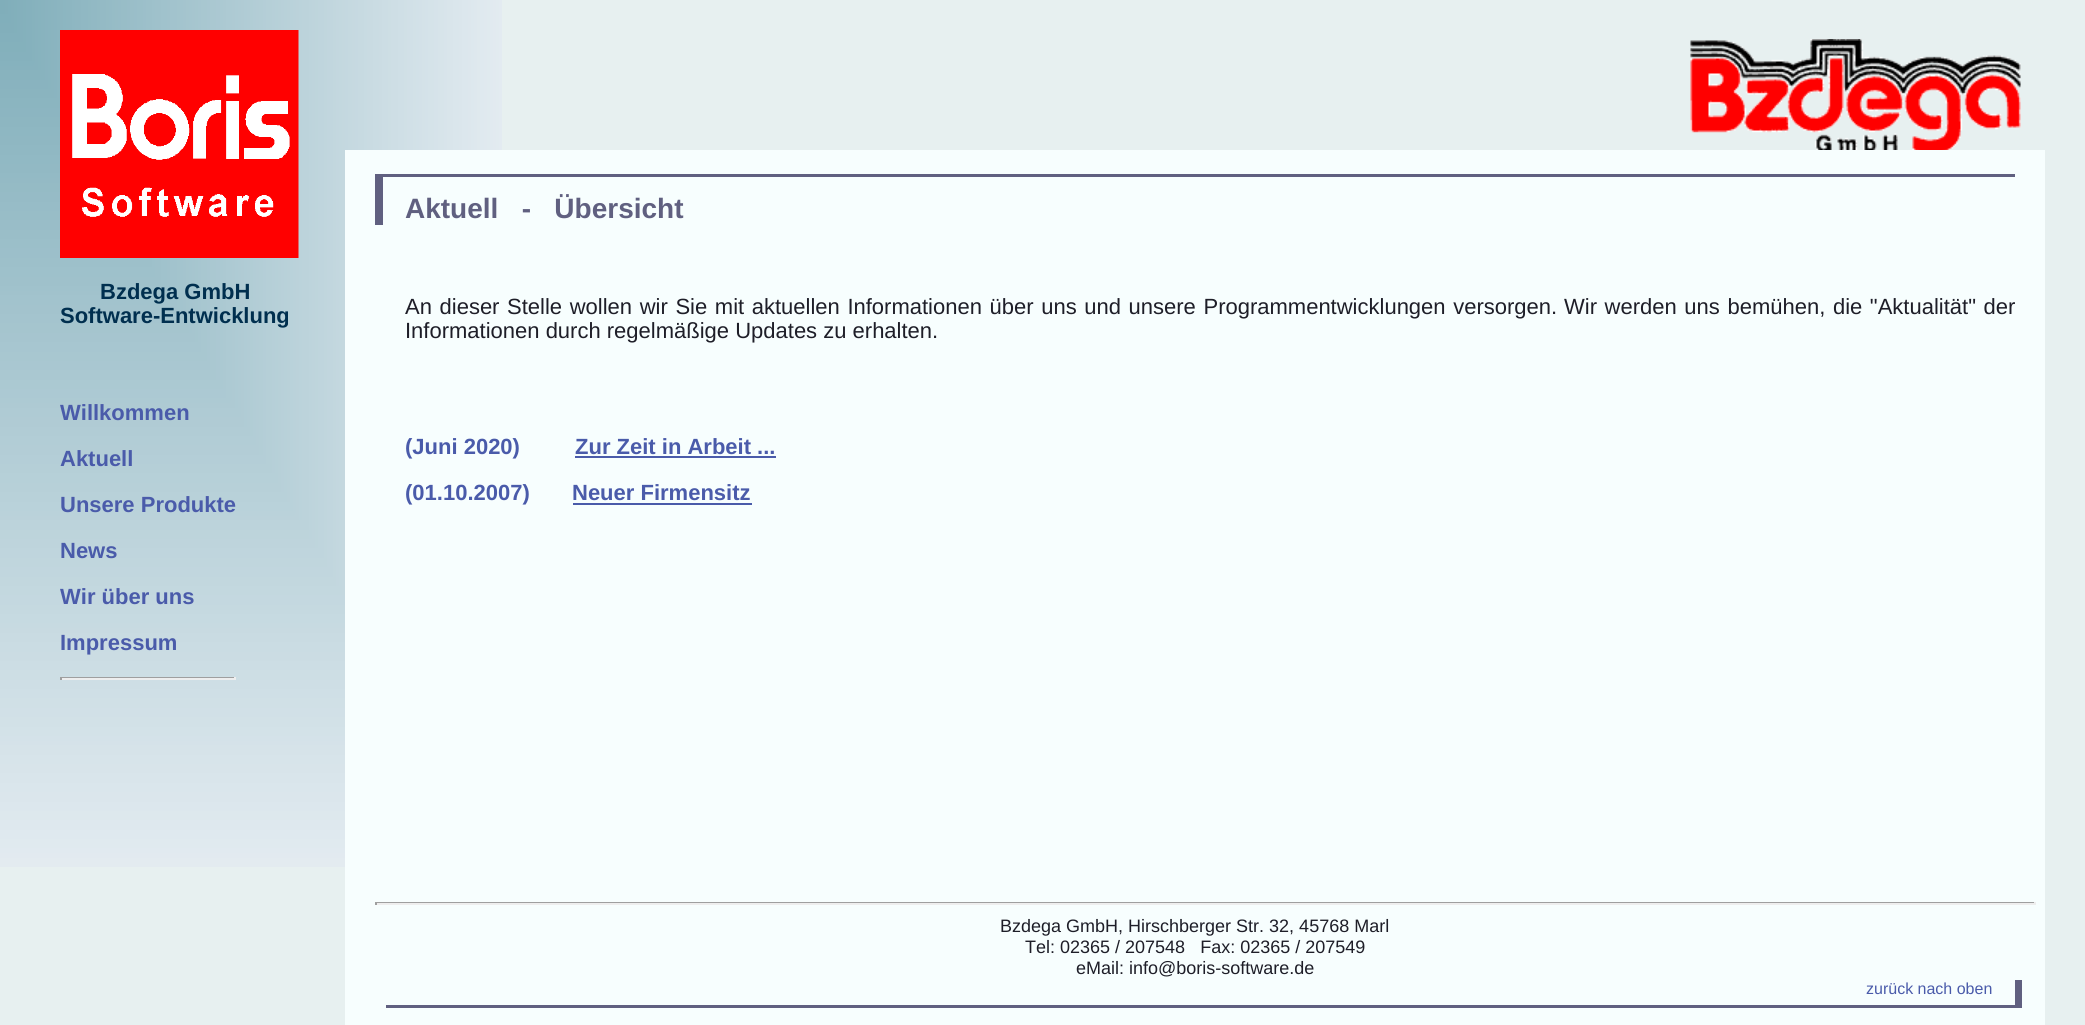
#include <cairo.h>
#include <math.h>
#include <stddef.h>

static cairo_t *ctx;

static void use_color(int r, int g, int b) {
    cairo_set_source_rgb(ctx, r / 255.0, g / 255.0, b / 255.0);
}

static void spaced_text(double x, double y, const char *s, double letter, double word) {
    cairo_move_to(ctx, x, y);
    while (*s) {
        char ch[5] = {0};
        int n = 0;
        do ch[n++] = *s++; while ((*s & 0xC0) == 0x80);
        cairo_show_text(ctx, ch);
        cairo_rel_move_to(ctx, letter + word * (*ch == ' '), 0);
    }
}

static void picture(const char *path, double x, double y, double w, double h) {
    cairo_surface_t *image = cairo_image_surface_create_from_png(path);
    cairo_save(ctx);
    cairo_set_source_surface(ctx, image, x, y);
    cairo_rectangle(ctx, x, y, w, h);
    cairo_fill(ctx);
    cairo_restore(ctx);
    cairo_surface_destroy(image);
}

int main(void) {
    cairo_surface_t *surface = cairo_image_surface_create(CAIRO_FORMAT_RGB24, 2085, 1025);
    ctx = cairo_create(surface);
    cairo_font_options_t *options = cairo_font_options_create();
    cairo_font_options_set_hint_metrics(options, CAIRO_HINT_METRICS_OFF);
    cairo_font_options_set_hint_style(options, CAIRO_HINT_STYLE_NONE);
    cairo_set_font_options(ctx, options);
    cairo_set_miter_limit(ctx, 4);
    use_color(231, 240, 240);
    cairo_paint(ctx);
    picture("img1.png", 0, 0, 502, 867);
    picture("img2.png", 1690, 39, 331, 111);
    picture("img3.png", 60, 30, 239, 228);
    cairo_select_font_face(ctx, "Liberation Sans", CAIRO_FONT_SLANT_NORMAL, CAIRO_FONT_WEIGHT_BOLD);
    cairo_set_font_size(ctx, 22);
    use_color(0, 47, 79);
    cairo_move_to(ctx, 100, 299);
    cairo_show_text(ctx, "Bzdega GmbH");
    cairo_move_to(ctx, 60, 323);
    cairo_show_text(ctx, "Software-Entwicklung");
    use_color(74, 91, 170);
    cairo_move_to(ctx, 60, 420);
    cairo_show_text(ctx, "Willkommen");
    cairo_move_to(ctx, 60, 466);
    cairo_show_text(ctx, "Aktuell");
    cairo_move_to(ctx, 60, 512);
    cairo_show_text(ctx, "Unsere Produkte");
    cairo_move_to(ctx, 60, 558);
    cairo_show_text(ctx, "News");
    cairo_move_to(ctx, 60, 604);
    cairo_show_text(ctx, "Wir über uns");
    cairo_move_to(ctx, 60, 650);
    cairo_show_text(ctx, "Impressum");
    use_color(159, 159, 159);
    cairo_rectangle(ctx, 60, 677, 176, 1);
    cairo_fill(ctx);
    use_color(238, 238, 238);
    cairo_rectangle(ctx, 234, 677, 2, 3);
    cairo_fill(ctx);
    cairo_rectangle(ctx, 60, 678, 176, 2);
    cairo_fill(ctx);
    use_color(159, 159, 159);
    cairo_rectangle(ctx, 60, 677, 2, 3);
    cairo_fill(ctx);
    use_color(247, 254, 254);
    cairo_rectangle(ctx, 345, 150, 1700, 875);
    cairo_fill(ctx);
    use_color(96, 96, 128);
    cairo_rectangle(ctx, 375, 174, 1640, 3);
    cairo_fill(ctx);
    cairo_rectangle(ctx, 375, 174, 8, 51);
    cairo_fill(ctx);
    cairo_set_font_size(ctx, 28);
    cairo_move_to(ctx, 405, 218);
    cairo_show_text(ctx, "Aktuell   -   Übersicht");
    cairo_select_font_face(ctx, "Liberation Sans", CAIRO_FONT_SLANT_NORMAL, CAIRO_FONT_WEIGHT_NORMAL);
    cairo_set_font_size(ctx, 22);
    use_color(30, 30, 40);
    spaced_text(405, 314, "An dieser Stelle wollen wir Sie mit aktuellen Informationen über uns und unsere Programmentwicklungen versorgen.", 0, 1.5);
    spaced_text(1564, 314, "Wir werden uns bemühen, die \"Aktualität\" der", 0, 1.5);
    cairo_move_to(ctx, 405, 338);
    cairo_show_text(ctx, "Informationen durch regelmäßige Updates zu erhalten.");
    cairo_select_font_face(ctx, "Liberation Sans", CAIRO_FONT_SLANT_NORMAL, CAIRO_FONT_WEIGHT_BOLD);
    use_color(74, 91, 170);
    cairo_move_to(ctx, 405, 454);
    cairo_show_text(ctx, "(Juni 2020)");
    cairo_move_to(ctx, 575, 454);
    cairo_show_text(ctx, "Zur Zeit in Arbeit ...");
    cairo_rectangle(ctx, 575, 456, 201, 2);
    cairo_fill(ctx);
    cairo_move_to(ctx, 405, 500);
    cairo_show_text(ctx, "(01.10.2007)");
    cairo_move_to(ctx, 572, 500);
    cairo_show_text(ctx, "Neuer Firmensitz");
    cairo_rectangle(ctx, 573, 503, 179, 2);
    cairo_fill(ctx);
    use_color(159, 159, 159);
    cairo_rectangle(ctx, 375, 902, 1661, 1);
    cairo_fill(ctx);
    use_color(238, 238, 238);
    cairo_rectangle(ctx, 2034, 902, 2, 3);
    cairo_fill(ctx);
    cairo_rectangle(ctx, 375, 903, 1661, 2);
    cairo_fill(ctx);
    use_color(159, 159, 159);
    cairo_rectangle(ctx, 375, 902, 2, 3);
    cairo_fill(ctx);
    cairo_select_font_face(ctx, "Liberation Sans", CAIRO_FONT_SLANT_NORMAL, CAIRO_FONT_WEIGHT_NORMAL);
    cairo_set_font_size(ctx, 18);
    use_color(30, 30, 40);
    cairo_move_to(ctx, 1000, 932);
    cairo_show_text(ctx, "Bzdega GmbH, Hirschberger Str. 32, 45768 Marl");
    cairo_move_to(ctx, 1025, 953);
    cairo_show_text(ctx, "Tel: 02365 / 207548   Fax: 02365 / 207549");
    cairo_move_to(ctx, 1076, 974);
    cairo_show_text(ctx, "eMail: info@boris-software.de");
    use_color(96, 96, 128);
    cairo_rectangle(ctx, 2015, 980, 7, 28);
    cairo_fill(ctx);
    cairo_rectangle(ctx, 386, 1005, 1636, 3);
    cairo_fill(ctx);
    cairo_set_font_size(ctx, 16);
    use_color(74, 91, 170);
    cairo_move_to(ctx, 1866, 994);
    cairo_show_text(ctx, "zurück nach oben");
    cairo_surface_write_to_png(surface, "result.png");
    cairo_font_options_destroy(options);
    cairo_destroy(ctx);
    cairo_surface_destroy(surface);
    return 0;
}
